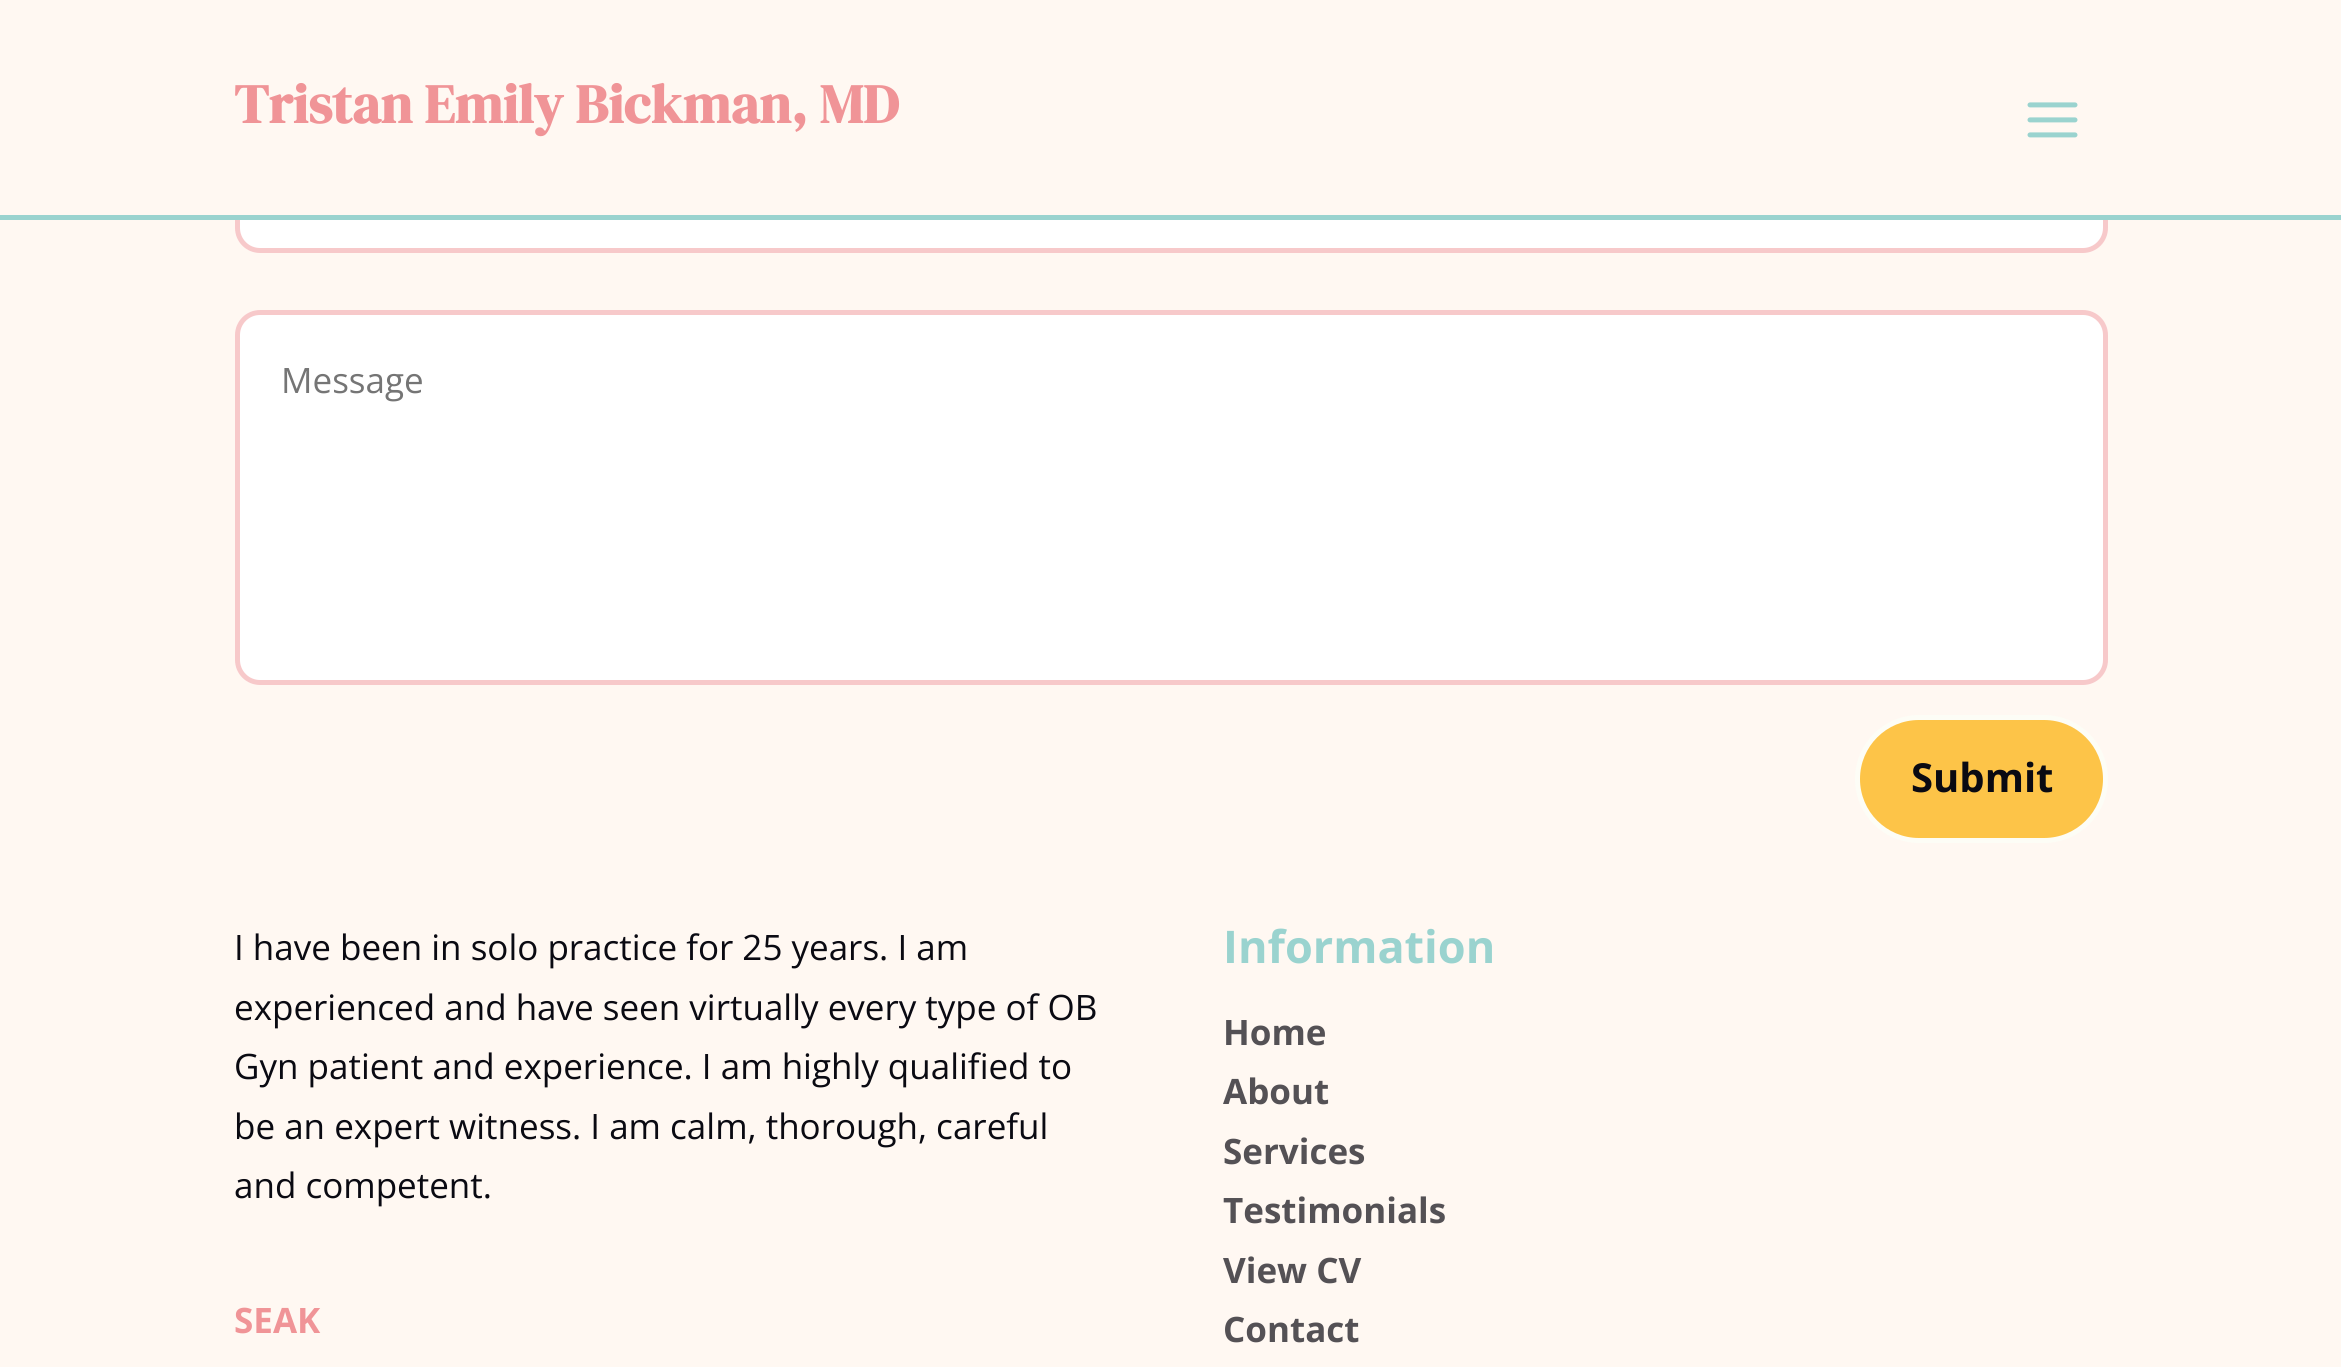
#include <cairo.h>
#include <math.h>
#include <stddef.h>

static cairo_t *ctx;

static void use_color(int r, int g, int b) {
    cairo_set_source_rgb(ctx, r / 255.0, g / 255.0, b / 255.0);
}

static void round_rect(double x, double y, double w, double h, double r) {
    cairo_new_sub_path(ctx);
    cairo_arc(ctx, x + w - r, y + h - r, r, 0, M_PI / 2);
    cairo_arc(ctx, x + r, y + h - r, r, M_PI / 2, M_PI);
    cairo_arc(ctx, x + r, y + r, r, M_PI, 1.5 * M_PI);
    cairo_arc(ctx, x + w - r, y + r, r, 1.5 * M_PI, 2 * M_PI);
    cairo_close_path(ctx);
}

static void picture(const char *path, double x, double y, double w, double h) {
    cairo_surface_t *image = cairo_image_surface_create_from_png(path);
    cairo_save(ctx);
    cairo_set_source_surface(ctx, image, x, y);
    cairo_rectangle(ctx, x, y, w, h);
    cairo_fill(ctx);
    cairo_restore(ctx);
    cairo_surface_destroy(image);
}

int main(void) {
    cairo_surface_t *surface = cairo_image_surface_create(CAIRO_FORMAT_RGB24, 2341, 1367);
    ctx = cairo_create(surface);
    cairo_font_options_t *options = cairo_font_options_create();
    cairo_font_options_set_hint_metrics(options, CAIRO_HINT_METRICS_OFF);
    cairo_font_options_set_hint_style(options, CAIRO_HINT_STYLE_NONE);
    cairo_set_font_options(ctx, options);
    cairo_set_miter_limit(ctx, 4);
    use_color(255, 248, 242);
    cairo_paint(ctx);
    use_color(255, 255, 255);
    round_rect(235, 115, 1873, 138, 25);
    cairo_fill(ctx);
    round_rect(237.5, 117.5, 1868, 133, 22.5);
    cairo_set_source_rgba(ctx, 0.941, 0.58, 0.592, 0.5);
    cairo_set_line_width(ctx, 5);
    cairo_stroke(ctx);
    use_color(255, 248, 242);
    cairo_rectangle(ctx, 235, 115, 1873, 100);
    cairo_fill(ctx);
    use_color(154, 211, 207);
    cairo_rectangle(ctx, 0, 215, 2341, 5);
    cairo_fill(ctx);
    cairo_select_font_face(ctx, "DM Serif Display", CAIRO_FONT_SLANT_NORMAL, CAIRO_FONT_WEIGHT_BOLD);
    cairo_set_font_size(ctx, 55);
    use_color(240, 148, 151);
    cairo_move_to(ctx, 234, 123);
    cairo_show_text(ctx, "Tristan Emily Bickman, MD");
    picture("img1.png", 2027, 102, 51, 36);
    use_color(255, 255, 255);
    round_rect(235, 310, 1873, 375, 25);
    cairo_fill(ctx);
    round_rect(237.5, 312.5, 1868, 370, 22.5);
    cairo_set_source_rgba(ctx, 0.941, 0.58, 0.592, 0.5);
    cairo_stroke(ctx);
    cairo_select_font_face(ctx, "Open Sans", CAIRO_FONT_SLANT_NORMAL, CAIRO_FONT_WEIGHT_NORMAL);
    cairo_set_font_size(ctx, 35);
    use_color(117, 117, 117);
    cairo_move_to(ctx, 281, 393);
    cairo_show_text(ctx, "Message");
    use_color(253, 196, 72);
    round_rect(1857.5, 717.5, 248, 123, 61.5);
    cairo_fill_preserve(ctx);
    use_color(253, 253, 246);
    cairo_stroke(ctx);
    cairo_select_font_face(ctx, "Open Sans", CAIRO_FONT_SLANT_NORMAL, CAIRO_FONT_WEIGHT_BOLD);
    cairo_set_font_size(ctx, 40);
    use_color(10, 10, 18);
    cairo_move_to(ctx, 1911, 792);
    cairo_show_text(ctx, "Submit");
    cairo_select_font_face(ctx, "Open Sans", CAIRO_FONT_SLANT_NORMAL, CAIRO_FONT_WEIGHT_NORMAL);
    cairo_set_font_size(ctx, 35);
    cairo_move_to(ctx, 234, 960);
    cairo_show_text(ctx, "I have been in solo practice for 25 years. I am");
    cairo_move_to(ctx, 234, 1020);
    cairo_show_text(ctx, "experienced and have seen virtually every type of OB");
    cairo_move_to(ctx, 234, 1079);
    cairo_show_text(ctx, "Gyn patient and experience. I am highly qualified to");
    cairo_move_to(ctx, 234, 1139);
    cairo_show_text(ctx, "be an expert witness. I am calm, thorough, careful");
    cairo_move_to(ctx, 234, 1198);
    cairo_show_text(ctx, "and competent.");
    cairo_select_font_face(ctx, "Open Sans", CAIRO_FONT_SLANT_NORMAL, CAIRO_FONT_WEIGHT_BOLD);
    use_color(240, 148, 151);
    cairo_move_to(ctx, 234, 1333);
    cairo_show_text(ctx, "SEAK");
    cairo_set_font_size(ctx, 45);
    use_color(154, 211, 207);
    cairo_move_to(ctx, 1223, 963);
    cairo_show_text(ctx, "Information");
    cairo_set_font_size(ctx, 35);
    use_color(84, 81, 85);
    cairo_move_to(ctx, 1223, 1045);
    cairo_show_text(ctx, "Home");
    cairo_move_to(ctx, 1223, 1104);
    cairo_show_text(ctx, "About");
    cairo_move_to(ctx, 1223, 1164);
    cairo_show_text(ctx, "Services");
    cairo_move_to(ctx, 1223, 1223);
    cairo_show_text(ctx, "Testimonials");
    cairo_move_to(ctx, 1223, 1283);
    cairo_show_text(ctx, "View CV");
    cairo_move_to(ctx, 1223, 1342);
    cairo_show_text(ctx, "Contact");
    cairo_surface_write_to_png(surface, "result.png");
    cairo_font_options_destroy(options);
    cairo_destroy(ctx);
    cairo_surface_destroy(surface);
    return 0;
}
